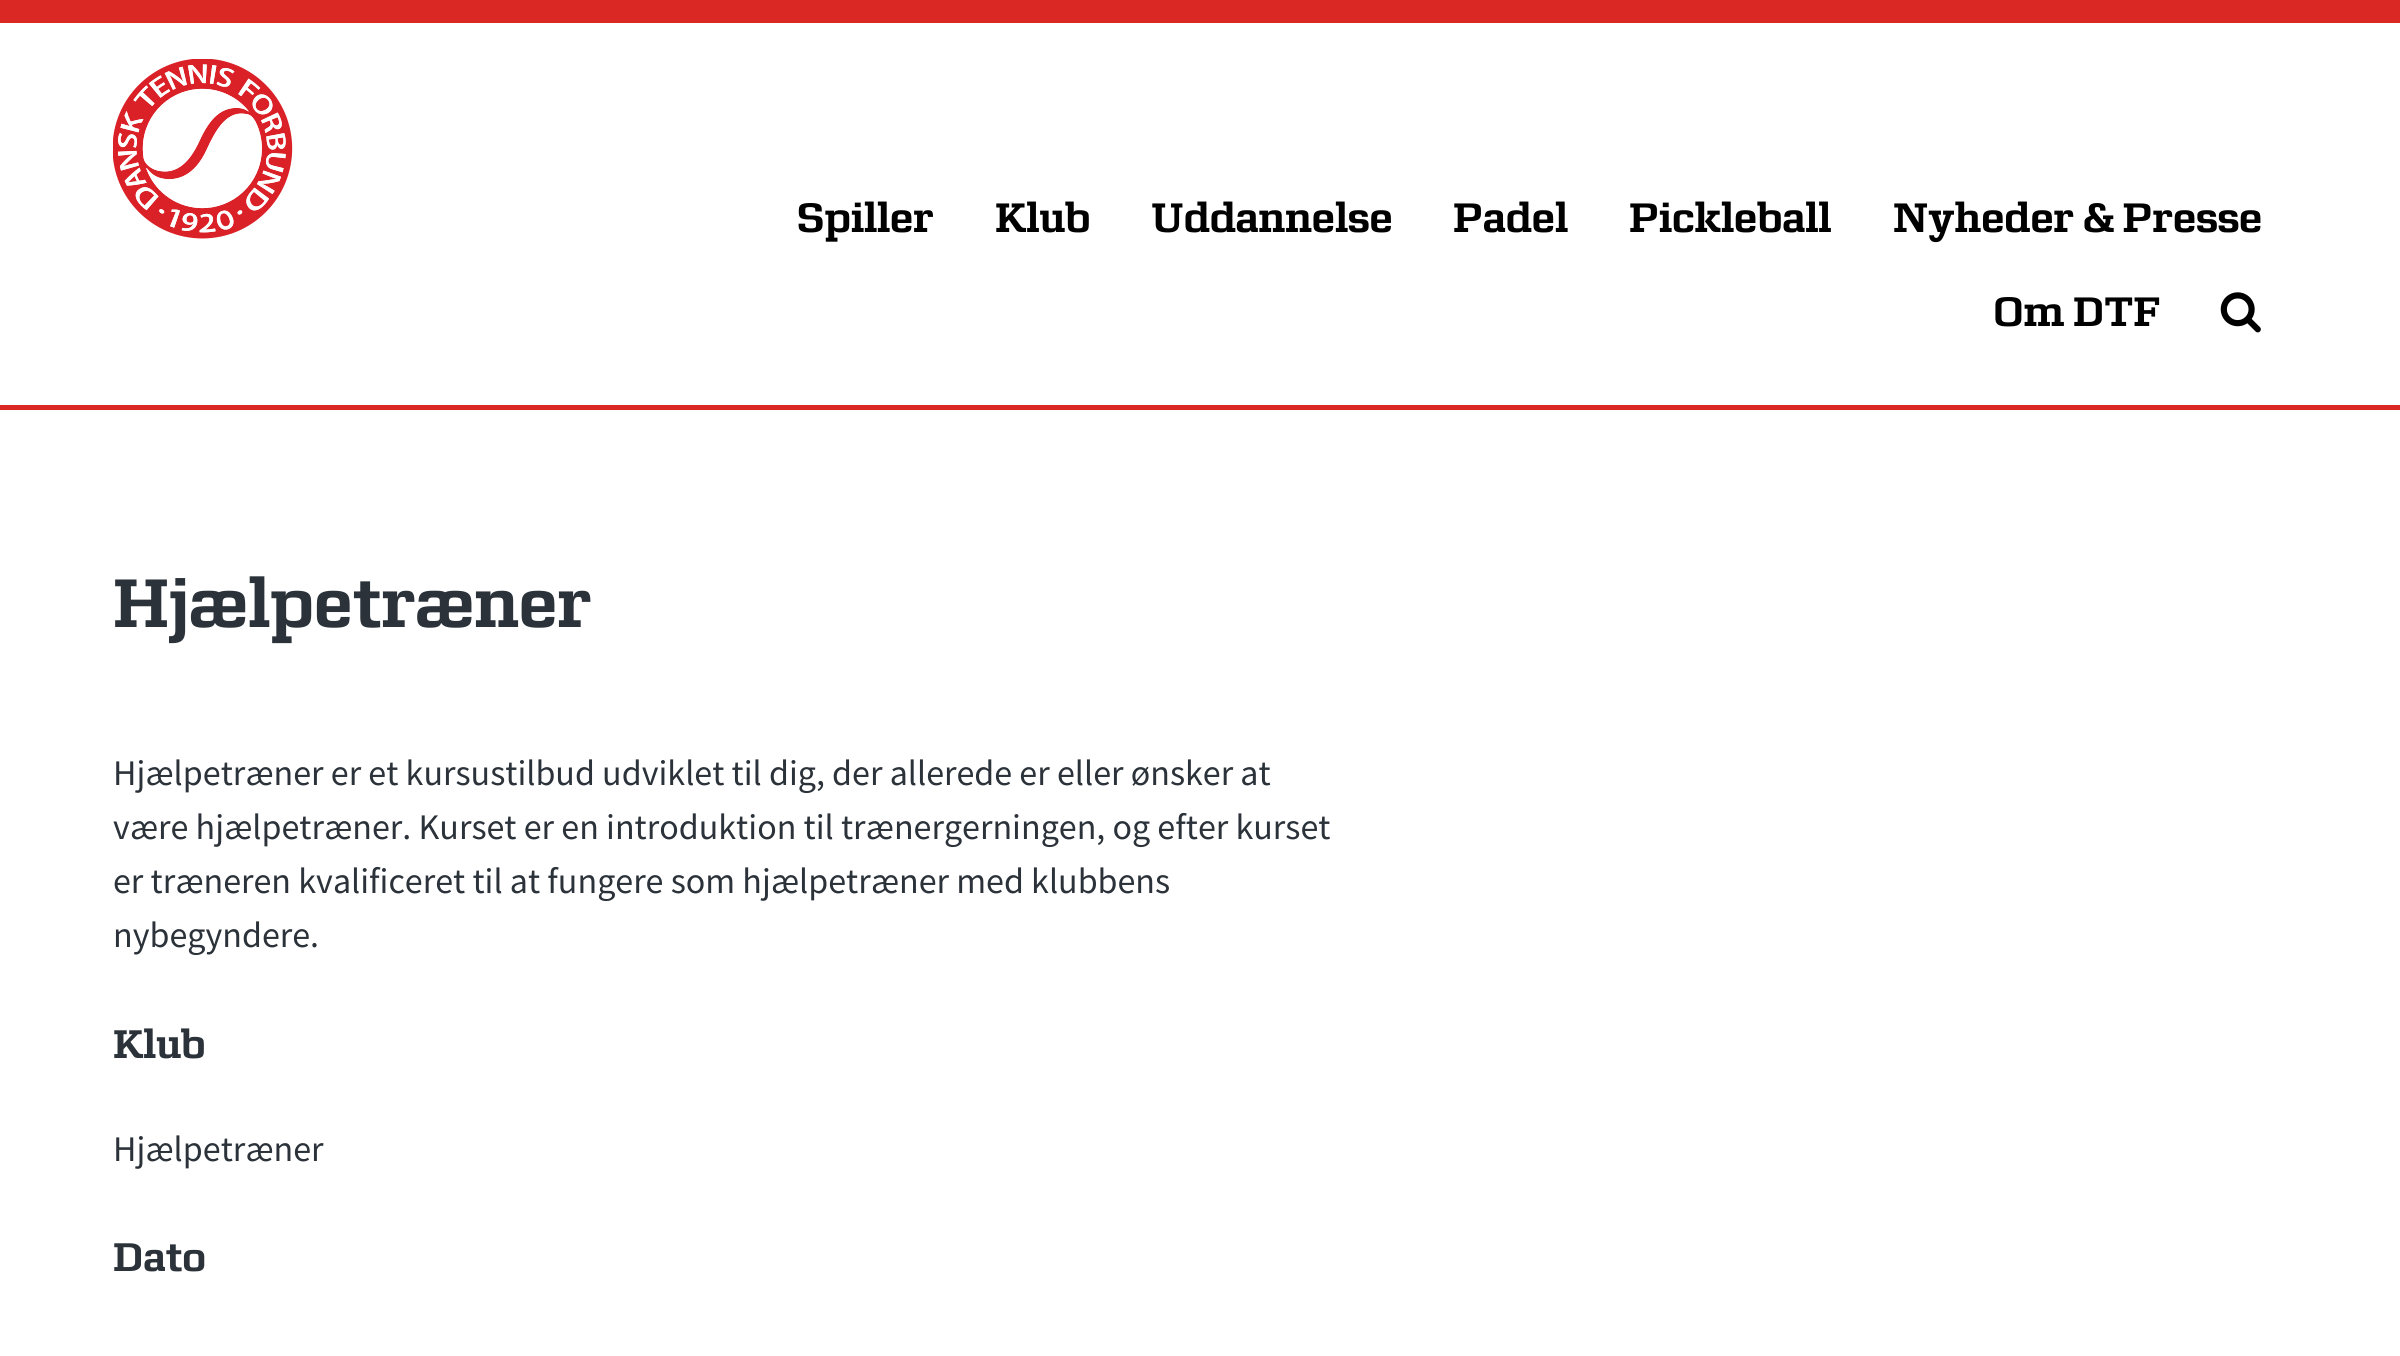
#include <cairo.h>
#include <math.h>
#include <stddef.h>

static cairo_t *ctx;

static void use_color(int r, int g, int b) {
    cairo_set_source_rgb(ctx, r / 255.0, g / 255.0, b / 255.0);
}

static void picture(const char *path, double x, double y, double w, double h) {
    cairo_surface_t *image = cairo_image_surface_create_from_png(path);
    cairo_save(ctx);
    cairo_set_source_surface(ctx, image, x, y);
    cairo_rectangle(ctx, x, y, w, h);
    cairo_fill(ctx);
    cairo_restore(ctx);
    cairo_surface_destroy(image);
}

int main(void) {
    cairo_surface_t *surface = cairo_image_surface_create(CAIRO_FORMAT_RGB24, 2400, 1356);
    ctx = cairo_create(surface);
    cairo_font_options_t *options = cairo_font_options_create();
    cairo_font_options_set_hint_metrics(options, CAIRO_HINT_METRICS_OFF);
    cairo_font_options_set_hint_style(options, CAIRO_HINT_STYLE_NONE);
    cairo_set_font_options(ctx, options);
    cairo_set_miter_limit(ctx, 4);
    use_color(255, 255, 255);
    cairo_paint(ctx);
    use_color(218, 41, 37);
    cairo_rectangle(ctx, 0, 0, 2400, 23);
    cairo_fill(ctx);
    cairo_rectangle(ctx, 0, 405, 2400, 5);
    cairo_fill(ctx);
    picture("img1.png", 113, 59, 180, 180);
    cairo_select_font_face(ctx, "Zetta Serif", CAIRO_FONT_SLANT_NORMAL, CAIRO_FONT_WEIGHT_BOLD);
    cairo_set_font_size(ctx, 43.25);
    use_color(0, 0, 0);
    cairo_move_to(ctx, 797, 232);
    cairo_show_text(ctx, "Spiller");
    cairo_move_to(ctx, 995, 232);
    cairo_show_text(ctx, "Klub");
    cairo_move_to(ctx, 1151, 232);
    cairo_show_text(ctx, "Uddannelse");
    cairo_move_to(ctx, 1453, 232);
    cairo_show_text(ctx, "Padel");
    cairo_move_to(ctx, 1629, 232);
    cairo_show_text(ctx, "Pickleball");
    cairo_move_to(ctx, 1893, 232);
    cairo_show_text(ctx, "Nyheder & Presse");
    cairo_move_to(ctx, 1993, 326);
    cairo_show_text(ctx, "Om DTF");
    picture("img2.png", 2220, 292, 41, 41);
    cairo_set_font_size(ctx, 72);
    use_color(43, 50, 57);
    cairo_move_to(ctx, 113, 627);
    cairo_show_text(ctx, "Hjælpetræner");
    cairo_select_font_face(ctx, "Source Sans Pro", CAIRO_FONT_SLANT_NORMAL, CAIRO_FONT_WEIGHT_NORMAL);
    cairo_set_font_size(ctx, 36);
    cairo_move_to(ctx, 113, 785);
    cairo_show_text(ctx, "Hjælpetræner er et kursustilbud udviklet til dig, der allerede er eller ønsker at");
    cairo_move_to(ctx, 113, 839);
    cairo_show_text(ctx, "være hjælpetræner. Kurset er en introduktion til trænergerningen, og efter kurset");
    cairo_move_to(ctx, 113, 893);
    cairo_show_text(ctx, "er træneren kvalificeret til at fungere som hjælpetræner med klubbens");
    cairo_move_to(ctx, 113, 947);
    cairo_show_text(ctx, "nybegyndere.");
    cairo_select_font_face(ctx, "Zetta Serif", CAIRO_FONT_SLANT_NORMAL, CAIRO_FONT_WEIGHT_BOLD);
    cairo_set_font_size(ctx, 42);
    cairo_move_to(ctx, 113, 1058);
    cairo_show_text(ctx, "Klub");
    cairo_select_font_face(ctx, "Source Sans Pro", CAIRO_FONT_SLANT_NORMAL, CAIRO_FONT_WEIGHT_NORMAL);
    cairo_set_font_size(ctx, 36);
    cairo_move_to(ctx, 113, 1161);
    cairo_show_text(ctx, "Hjælpetræner");
    cairo_select_font_face(ctx, "Zetta Serif", CAIRO_FONT_SLANT_NORMAL, CAIRO_FONT_WEIGHT_BOLD);
    cairo_set_font_size(ctx, 42);
    cairo_move_to(ctx, 113, 1271);
    cairo_show_text(ctx, "Dato");
    cairo_surface_write_to_png(surface, "result.png");
    cairo_font_options_destroy(options);
    cairo_destroy(ctx);
    cairo_surface_destroy(surface);
    return 0;
}
